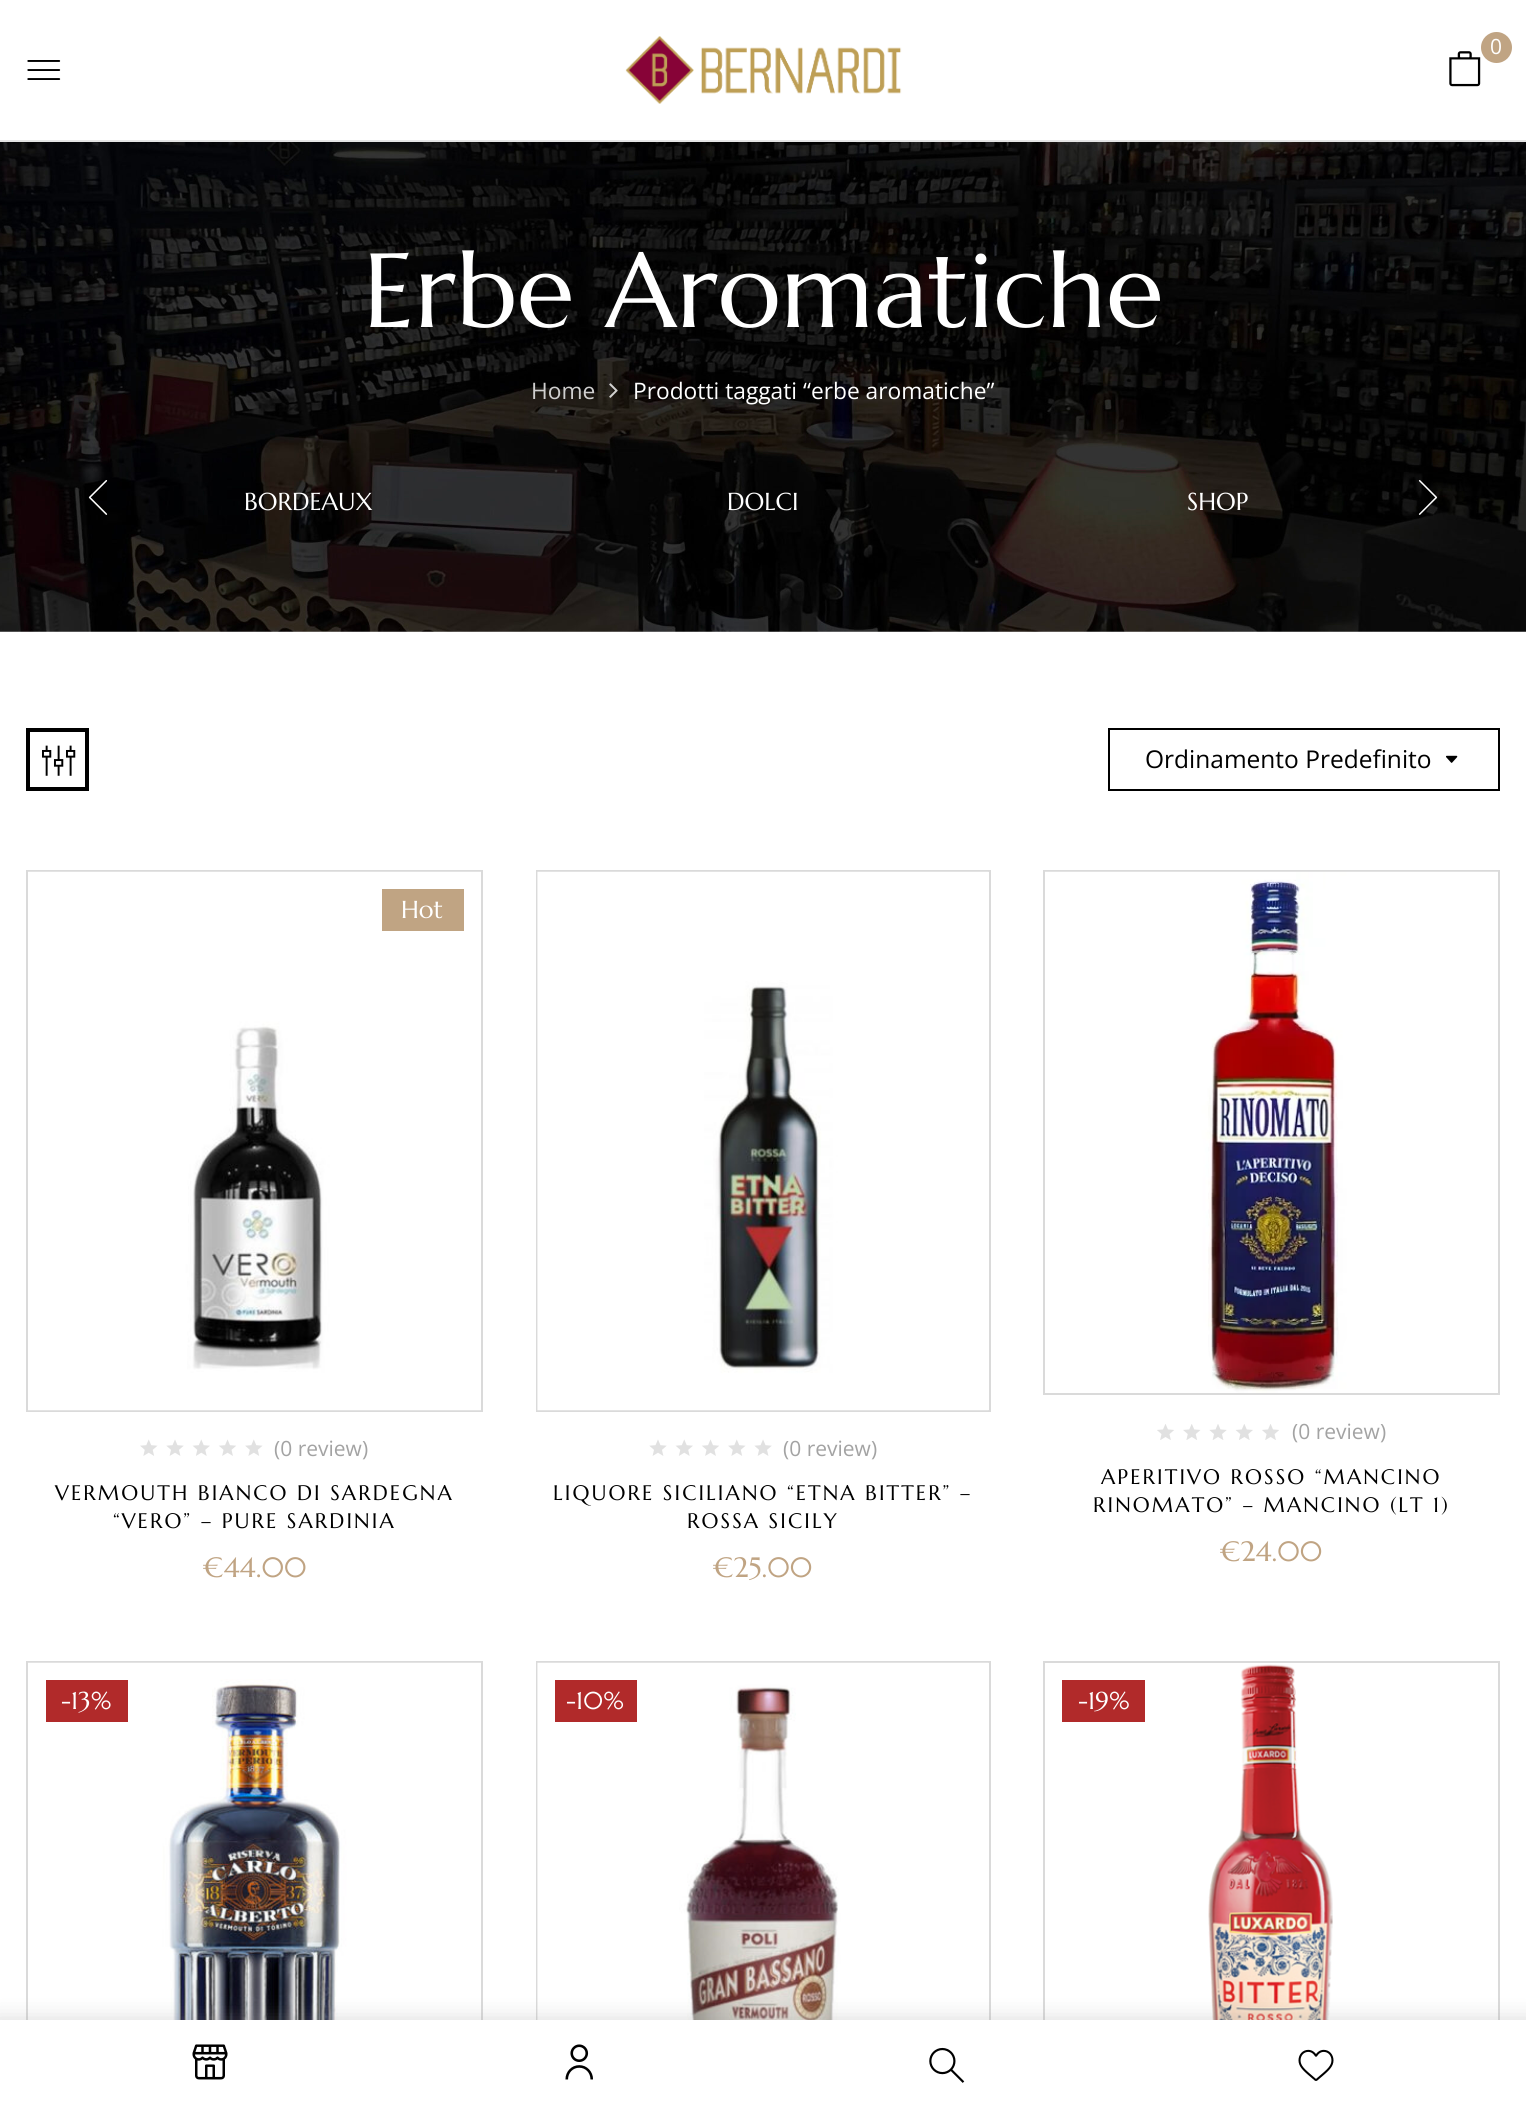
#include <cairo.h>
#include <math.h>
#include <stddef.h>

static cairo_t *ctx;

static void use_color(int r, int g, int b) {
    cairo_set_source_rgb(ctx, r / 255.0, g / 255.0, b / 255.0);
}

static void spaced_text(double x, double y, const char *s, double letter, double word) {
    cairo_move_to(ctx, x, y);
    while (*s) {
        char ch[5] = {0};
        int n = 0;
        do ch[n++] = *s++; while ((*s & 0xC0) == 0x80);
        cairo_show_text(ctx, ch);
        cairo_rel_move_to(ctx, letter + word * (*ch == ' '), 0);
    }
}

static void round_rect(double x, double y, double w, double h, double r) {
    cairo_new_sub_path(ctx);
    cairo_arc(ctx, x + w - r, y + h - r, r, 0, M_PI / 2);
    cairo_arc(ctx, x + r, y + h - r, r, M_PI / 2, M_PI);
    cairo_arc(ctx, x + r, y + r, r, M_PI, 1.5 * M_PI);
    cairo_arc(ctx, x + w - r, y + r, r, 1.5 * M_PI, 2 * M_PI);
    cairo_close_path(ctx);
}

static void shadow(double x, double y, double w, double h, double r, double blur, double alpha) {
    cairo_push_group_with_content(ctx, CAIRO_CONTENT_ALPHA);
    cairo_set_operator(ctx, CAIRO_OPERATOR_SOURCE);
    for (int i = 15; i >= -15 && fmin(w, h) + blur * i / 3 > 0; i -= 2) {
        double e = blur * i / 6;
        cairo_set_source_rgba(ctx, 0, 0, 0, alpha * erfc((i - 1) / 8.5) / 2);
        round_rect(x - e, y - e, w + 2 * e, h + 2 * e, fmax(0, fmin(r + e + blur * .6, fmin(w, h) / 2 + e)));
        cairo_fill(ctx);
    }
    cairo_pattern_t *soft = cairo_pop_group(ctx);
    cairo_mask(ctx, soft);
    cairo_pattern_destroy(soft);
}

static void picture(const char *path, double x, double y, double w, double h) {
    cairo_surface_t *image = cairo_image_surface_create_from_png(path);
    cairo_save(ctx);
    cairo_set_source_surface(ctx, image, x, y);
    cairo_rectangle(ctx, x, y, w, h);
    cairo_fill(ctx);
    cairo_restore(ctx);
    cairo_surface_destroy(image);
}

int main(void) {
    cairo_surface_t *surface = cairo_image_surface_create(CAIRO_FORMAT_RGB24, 1526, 2106);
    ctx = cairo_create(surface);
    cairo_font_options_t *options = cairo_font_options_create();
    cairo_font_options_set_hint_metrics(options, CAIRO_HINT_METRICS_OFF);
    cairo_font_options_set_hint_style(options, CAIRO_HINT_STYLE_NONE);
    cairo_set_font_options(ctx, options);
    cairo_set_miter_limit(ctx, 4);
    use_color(255, 255, 255);
    cairo_paint(ctx);
    use_color(229, 229, 229);
    cairo_rectangle(ctx, 0, 140, 1526, 2);
    cairo_fill(ctx);
    picture("img1.png", 625, 36, 277, 68);
    use_color(192, 164, 131);
    cairo_arc(ctx, 1496.5, 47.5, 15.5, 0, 2 * M_PI);
    cairo_fill(ctx);
    cairo_select_font_face(ctx, "Open Sans", CAIRO_FONT_SLANT_NORMAL, CAIRO_FONT_WEIGHT_NORMAL);
    cairo_set_font_size(ctx, 21);
    use_color(255, 255, 255);
    cairo_move_to(ctx, 1490, 54);
    cairo_show_text(ctx, "0");
    picture("img2.png", 1449, 51, 32, 36);
    picture("img3.png", 27, 60, 34, 20);
    cairo_rectangle(ctx, 27, 1662, 455, 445);
    use_color(218, 218, 218);
    cairo_stroke(ctx);
    picture("img20.png", 28, 1662, 453, 358);
    cairo_rectangle(ctx, 537, 1662, 453, 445);
    cairo_stroke(ctx);
    picture("img21.png", 537, 1662, 452, 358);
    cairo_rectangle(ctx, 1044, 1662, 455, 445);
    cairo_stroke(ctx);
    picture("img22.png", 1208, 1664, 125, 356);
    use_color(143, 143, 143);
    shadow(-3, 2018, 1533, 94, 0, 10.5, 0.3);
    use_color(255, 255, 255);
    cairo_rectangle(ctx, 0, 2020, 1526, 86);
    cairo_fill(ctx);
    picture("img4.png", 192, 2044, 36, 36);
    picture("img5.png", 565, 2044, 28, 36);
    picture("img6.png", 929, 2047, 36, 36);
    picture("img7.png", 1298, 2049, 36, 32);
    picture("img8.png", 0, 142, 1526, 490);
    cairo_select_font_face(ctx, "Marcellus", CAIRO_FONT_SLANT_NORMAL, CAIRO_FONT_WEIGHT_NORMAL);
    cairo_set_font_size(ctx, 105);
    cairo_move_to(ctx, 363, 327);
    cairo_show_text(ctx, "Erbe Aromatiche");
    cairo_select_font_face(ctx, "Open Sans", CAIRO_FONT_SLANT_NORMAL, CAIRO_FONT_WEIGHT_NORMAL);
    cairo_set_font_size(ctx, 22.75);
    use_color(208, 207, 207);
    cairo_move_to(ctx, 531, 399);
    cairo_show_text(ctx, "Home");
    picture("img9.png", 609, 383, 9, 15);
    use_color(255, 255, 255);
    cairo_move_to(ctx, 633, 399);
    cairo_show_text(ctx, "Prodotti taggati “erbe aromatiche”");
    picture("img10.png", 88, 480, 20, 35);
    cairo_select_font_face(ctx, "Marcellus", CAIRO_FONT_SLANT_NORMAL, CAIRO_FONT_WEIGHT_NORMAL);
    cairo_set_font_size(ctx, 24.5);
    cairo_move_to(ctx, 244, 510);
    cairo_show_text(ctx, "BORDEAUX");
    cairo_move_to(ctx, 727, 510);
    cairo_show_text(ctx, "DOLCI");
    cairo_move_to(ctx, 1187, 510);
    cairo_show_text(ctx, "SHOP");
    picture("img11.png", 1418, 480, 20, 35);
    cairo_rectangle(ctx, 28, 730, 59, 59);
    use_color(0, 0, 0);
    cairo_set_line_width(ctx, 4);
    cairo_stroke(ctx);
    picture("img12.png", 42, 745, 34, 31);
    cairo_rectangle(ctx, 1109, 729, 390, 61);
    cairo_set_line_width(ctx, 2);
    cairo_stroke(ctx);
    cairo_select_font_face(ctx, "Open Sans", CAIRO_FONT_SLANT_NORMAL, CAIRO_FONT_WEIGHT_NORMAL);
    cairo_move_to(ctx, 1145, 768);
    cairo_show_text(ctx, "Ordinamento Predefinito");
    picture("img13.png", 1446, 755, 12, 8);
    cairo_rectangle(ctx, 27, 871, 455, 540);
    use_color(218, 218, 218);
    cairo_stroke(ctx);
    picture("img14.png", 28, 871, 453, 540);
    use_color(192, 164, 131);
    cairo_rectangle(ctx, 382, 889, 82, 42);
    cairo_fill(ctx);
    cairo_select_font_face(ctx, "Marcellus", CAIRO_FONT_SLANT_NORMAL, CAIRO_FONT_WEIGHT_NORMAL);
    use_color(255, 255, 255);
    cairo_move_to(ctx, 401, 918);
    cairo_show_text(ctx, "Hot");
    picture("img15.png", 140, 1439, 123, 17);
    cairo_select_font_face(ctx, "Open Sans", CAIRO_FONT_SLANT_NORMAL, CAIRO_FONT_WEIGHT_NORMAL);
    cairo_set_font_size(ctx, 21);
    use_color(163, 163, 163);
    cairo_move_to(ctx, 274, 1456);
    cairo_show_text(ctx, "(0 review)");
    cairo_select_font_face(ctx, "Marcellus", CAIRO_FONT_SLANT_NORMAL, CAIRO_FONT_WEIGHT_NORMAL);
    use_color(0, 0, 0);
    spaced_text(55, 1500, "VERMOUTH BIANCO DI SARDEGNA", 2.1, 0);
    spaced_text(113, 1528, "“VERO” – PURE SARDINIA", 2.1, 0);
    cairo_set_font_size(ctx, 28);
    use_color(192, 164, 131);
    cairo_move_to(ctx, 203, 1577);
    cairo_show_text(ctx, "€44.00");
    cairo_rectangle(ctx, 537, 871, 453, 540);
    use_color(218, 218, 218);
    cairo_stroke(ctx);
    picture("img16.png", 537, 871, 452, 540);
    picture("img17.png", 649, 1439, 123, 17);
    cairo_select_font_face(ctx, "Open Sans", CAIRO_FONT_SLANT_NORMAL, CAIRO_FONT_WEIGHT_NORMAL);
    cairo_set_font_size(ctx, 21);
    use_color(163, 163, 163);
    cairo_move_to(ctx, 783, 1456);
    cairo_show_text(ctx, "(0 review)");
    cairo_select_font_face(ctx, "Marcellus", CAIRO_FONT_SLANT_NORMAL, CAIRO_FONT_WEIGHT_NORMAL);
    use_color(0, 0, 0);
    spaced_text(553, 1500, "LIQUORE SICILIANO “ETNA BITTER” –", 2.1, 0);
    spaced_text(687, 1528, "ROSSA SICILY", 2.1, 0);
    cairo_set_font_size(ctx, 28);
    use_color(192, 164, 131);
    cairo_move_to(ctx, 713, 1577);
    cairo_show_text(ctx, "€25.00");
    cairo_rectangle(ctx, 1044, 871, 455, 523);
    use_color(218, 218, 218);
    cairo_stroke(ctx);
    picture("img18.png", 1045, 871, 453, 522);
    picture("img19.png", 1157, 1424, 122, 16);
    cairo_select_font_face(ctx, "Open Sans", CAIRO_FONT_SLANT_NORMAL, CAIRO_FONT_WEIGHT_NORMAL);
    cairo_set_font_size(ctx, 21);
    use_color(163, 163, 163);
    cairo_move_to(ctx, 1292, 1439);
    cairo_show_text(ctx, "(0 review)");
    cairo_select_font_face(ctx, "Marcellus", CAIRO_FONT_SLANT_NORMAL, CAIRO_FONT_WEIGHT_NORMAL);
    use_color(0, 0, 0);
    spaced_text(1101, 1484, "APERITIVO ROSSO “MANCINO", 2.1, 0);
    spaced_text(1093, 1512, "RINOMATO” – MANCINO (LT 1)", 2.1, 0);
    cairo_set_font_size(ctx, 28);
    use_color(192, 164, 131);
    cairo_move_to(ctx, 1220, 1561);
    cairo_show_text(ctx, "€24.00");
    use_color(177, 42, 42);
    cairo_rectangle(ctx, 46, 1680, 82, 42);
    cairo_fill(ctx);
    cairo_set_font_size(ctx, 24.5);
    use_color(255, 255, 255);
    cairo_move_to(ctx, 61, 1709);
    cairo_show_text(ctx, "-13%");
    use_color(177, 42, 42);
    cairo_rectangle(ctx, 555, 1680, 82, 42);
    cairo_fill(ctx);
    use_color(255, 255, 255);
    cairo_move_to(ctx, 566, 1709);
    cairo_show_text(ctx, "-10%");
    use_color(177, 42, 42);
    cairo_rectangle(ctx, 1062, 1680, 83, 42);
    cairo_fill(ctx);
    use_color(255, 255, 255);
    cairo_move_to(ctx, 1078, 1709);
    cairo_show_text(ctx, "-19%");
    cairo_surface_write_to_png(surface, "result.png");
    cairo_font_options_destroy(options);
    cairo_destroy(ctx);
    cairo_surface_destroy(surface);
    return 0;
}
